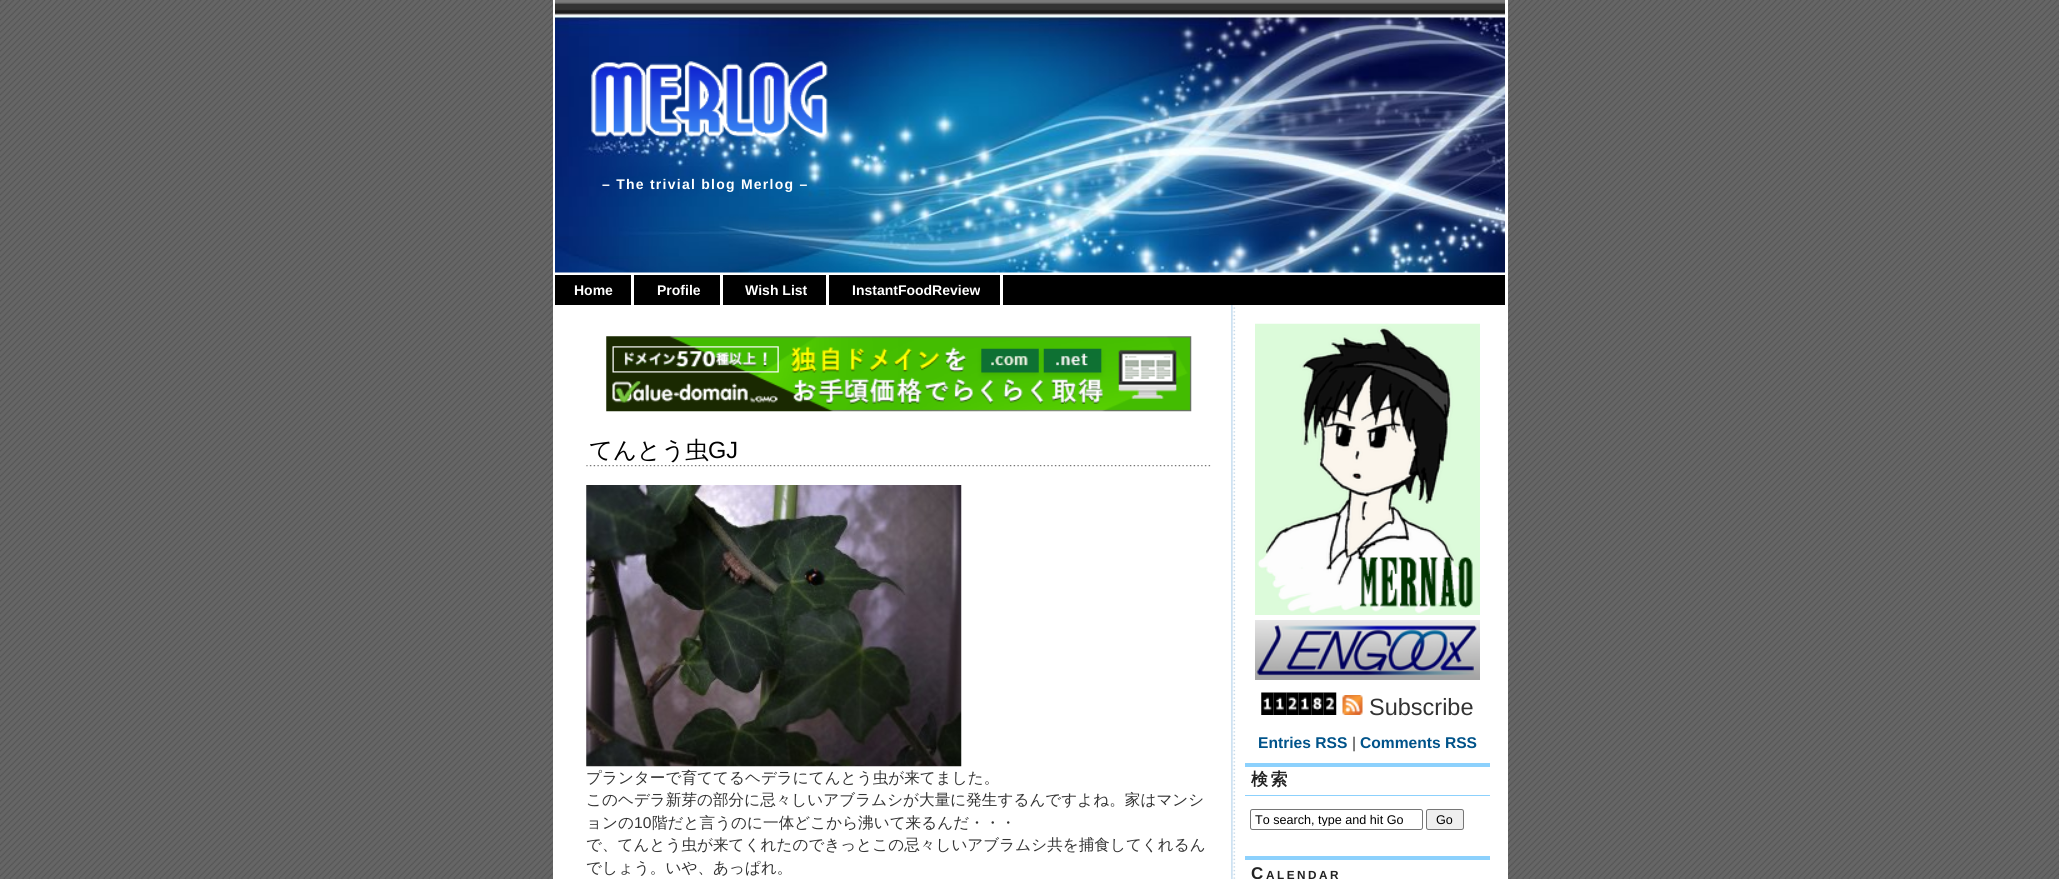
#include <cairo.h>
#include <math.h>
#include <stddef.h>

static cairo_t *ctx;

static void use_color(int r, int g, int b) {
    cairo_set_source_rgb(ctx, r / 255.0, g / 255.0, b / 255.0);
}

static void spaced_text(double x, double y, const char *s, double letter, double word) {
    cairo_move_to(ctx, x, y);
    while (*s) {
        char ch[5] = {0};
        int n = 0;
        do ch[n++] = *s++; while ((*s & 0xC0) == 0x80);
        cairo_show_text(ctx, ch);
        cairo_rel_move_to(ctx, letter + word * (*ch == ' '), 0);
    }
}

static void round_rect(double x, double y, double w, double h, double r) {
    cairo_new_sub_path(ctx);
    cairo_arc(ctx, x + w - r, y + h - r, r, 0, M_PI / 2);
    cairo_arc(ctx, x + r, y + h - r, r, M_PI / 2, M_PI);
    cairo_arc(ctx, x + r, y + r, r, M_PI, 1.5 * M_PI);
    cairo_arc(ctx, x + w - r, y + r, r, 1.5 * M_PI, 2 * M_PI);
    cairo_close_path(ctx);
}

static void picture(const char *path, double x, double y, double w, double h) {
    cairo_surface_t *image = cairo_image_surface_create_from_png(path);
    cairo_save(ctx);
    cairo_set_source_surface(ctx, image, x, y);
    cairo_rectangle(ctx, x, y, w, h);
    cairo_fill(ctx);
    cairo_restore(ctx);
    cairo_surface_destroy(image);
}

int main(void) {
    cairo_surface_t *surface = cairo_image_surface_create(CAIRO_FORMAT_RGB24, 2059, 879);
    ctx = cairo_create(surface);
    cairo_font_options_t *options = cairo_font_options_create();
    cairo_font_options_set_hint_metrics(options, CAIRO_HINT_METRICS_OFF);
    cairo_font_options_set_hint_style(options, CAIRO_HINT_STYLE_NONE);
    cairo_set_font_options(ctx, options);
    cairo_set_miter_limit(ctx, 4);
    use_color(255, 255, 255);
    cairo_paint(ctx);
    picture("img1.png", 0, 0, 2059, 879);
    use_color(255, 255, 255);
    cairo_rectangle(ctx, 553, 0, 955, 879);
    cairo_fill(ctx);
    picture("img2.png", 1231, 305, 5, 574);
    picture("img3.png", 555, 0, 950, 16);
    picture("img4.png", 555, 16, 950, 257);
    picture("img5.png", 591, 61, 237, 77);
    cairo_select_font_face(ctx, "Liberation Sans", CAIRO_FONT_SLANT_NORMAL, CAIRO_FONT_WEIGHT_BOLD);
    cairo_set_font_size(ctx, 14);
    spaced_text(602, 189, "– The trivial blog Merlog –", 1.25, 0);
    use_color(0, 0, 0);
    cairo_rectangle(ctx, 555, 275, 950, 30);
    cairo_fill(ctx);
    use_color(255, 255, 255);
    cairo_move_to(ctx, 574, 295);
    cairo_show_text(ctx, "Home");
    cairo_rectangle(ctx, 631, 275, 3, 30);
    cairo_fill(ctx);
    cairo_move_to(ctx, 657, 295);
    cairo_show_text(ctx, "Profile");
    cairo_rectangle(ctx, 720, 275, 3, 30);
    cairo_fill(ctx);
    cairo_move_to(ctx, 745, 295);
    cairo_show_text(ctx, "Wish List");
    cairo_rectangle(ctx, 826, 275, 3, 30);
    cairo_fill(ctx);
    cairo_move_to(ctx, 852, 295);
    cairo_show_text(ctx, "InstantFoodReview");
    cairo_rectangle(ctx, 1000, 275, 3, 30);
    cairo_fill(ctx);
    picture("img6.png", 606, 336, 586, 76);
    picture("img7.png", 586, 465, 625, 2);
    cairo_select_font_face(ctx, "WenQuanYi Zen Hei Medium", CAIRO_FONT_SLANT_NORMAL, CAIRO_FONT_WEIGHT_NORMAL);
    cairo_set_font_size(ctx, 23.5);
    use_color(0, 0, 0);
    cairo_move_to(ctx, 589, 458);
    cairo_show_text(ctx, "てんとう虫");
    cairo_select_font_face(ctx, "Liberation Sans", CAIRO_FONT_SLANT_NORMAL, CAIRO_FONT_WEIGHT_NORMAL);
    cairo_move_to(ctx, 708, 458);
    cairo_show_text(ctx, "GJ");
    picture("img8.png", 586, 485, 376, 282);
    cairo_select_font_face(ctx, "WenQuanYi Zen Hei Medium", CAIRO_FONT_SLANT_NORMAL, CAIRO_FONT_WEIGHT_NORMAL);
    cairo_set_font_size(ctx, 15.6);
    use_color(51, 51, 51);
    cairo_move_to(ctx, 586, 783);
    cairo_show_text(ctx, "プランターで育ててるヘデラにてんとう虫が来てました。");
    cairo_move_to(ctx, 586, 805);
    cairo_show_text(ctx, "このヘデラ新芽の部分に忌々しいアブラムシが大量に発生するんですよね。家はマンシ");
    cairo_move_to(ctx, 586, 828);
    cairo_show_text(ctx, "ョンの");
    cairo_select_font_face(ctx, "Liberation Sans", CAIRO_FONT_SLANT_NORMAL, CAIRO_FONT_WEIGHT_NORMAL);
    cairo_move_to(ctx, 634, 828);
    cairo_show_text(ctx, "10");
    cairo_select_font_face(ctx, "WenQuanYi Zen Hei Medium", CAIRO_FONT_SLANT_NORMAL, CAIRO_FONT_WEIGHT_NORMAL);
    cairo_move_to(ctx, 652, 828);
    cairo_show_text(ctx, "階だと言うのに一体どこから沸いて来るんだ・・・");
    cairo_move_to(ctx, 586, 850);
    cairo_show_text(ctx, "で、てんとう虫が来てくれたのできっとこの忌々しいアブラムシ共を捕食してくれるん");
    cairo_move_to(ctx, 586, 873);
    cairo_show_text(ctx, "でしょう。いや、あっぱれ。");
    picture("img9.png", 1255, 323, 225, 292);
    picture("img10.png", 1255, 620, 225, 60);
    picture("img11.png", 1261, 692, 13, 23);
    picture("img12.png", 1273, 692, 14, 23);
    picture("img13.png", 1286, 692, 13, 23);
    picture("img12.png", 1298, 692, 14, 23);
    picture("img14.png", 1311, 692, 13, 23);
    picture("img15.png", 1323, 692, 14, 23);
    picture("img16.png", 1342, 695, 21, 20);
    cairo_select_font_face(ctx, "Liberation Sans", CAIRO_FONT_SLANT_NORMAL, CAIRO_FONT_WEIGHT_NORMAL);
    cairo_set_font_size(ctx, 23.5);
    cairo_move_to(ctx, 1369, 715);
    cairo_show_text(ctx, "Subscribe");
    cairo_select_font_face(ctx, "Liberation Sans", CAIRO_FONT_SLANT_NORMAL, CAIRO_FONT_WEIGHT_BOLD);
    cairo_set_font_size(ctx, 15.6);
    use_color(0, 83, 138);
    cairo_move_to(ctx, 1258, 748);
    cairo_show_text(ctx, "Entries RSS");
    cairo_select_font_face(ctx, "Liberation Sans", CAIRO_FONT_SLANT_NORMAL, CAIRO_FONT_WEIGHT_NORMAL);
    use_color(51, 51, 51);
    cairo_move_to(ctx, 1352, 748);
    cairo_show_text(ctx, "|");
    cairo_select_font_face(ctx, "Liberation Sans", CAIRO_FONT_SLANT_NORMAL, CAIRO_FONT_WEIGHT_BOLD);
    use_color(0, 83, 138);
    cairo_move_to(ctx, 1360, 748);
    cairo_show_text(ctx, "Comments RSS");
    use_color(140, 209, 253);
    cairo_rectangle(ctx, 1245, 763, 245, 4);
    cairo_fill(ctx);
    cairo_rectangle(ctx, 1245, 795, 245, 1);
    cairo_fill(ctx);
    cairo_select_font_face(ctx, "WenQuanYi Zen Hei", CAIRO_FONT_SLANT_NORMAL, CAIRO_FONT_WEIGHT_BOLD);
    cairo_set_font_size(ctx, 17);
    use_color(34, 34, 34);
    spaced_text(1251, 785, "検索", 2.5, 0);
    round_rect(1250.5, 809.5, 172, 20, 2);
    use_color(118, 118, 118);
    cairo_set_line_width(ctx, 1);
    cairo_stroke(ctx);
    cairo_save(ctx);
    cairo_rectangle(ctx, 1255, 813, 163, 13);
    cairo_clip(ctx);
    cairo_select_font_face(ctx, "Liberation Sans", CAIRO_FONT_SLANT_NORMAL, CAIRO_FONT_WEIGHT_NORMAL);
    cairo_set_font_size(ctx, 12.6);
    use_color(0, 0, 0);
    cairo_move_to(ctx, 1255, 824);
    cairo_show_text(ctx, "To search, type and hit Go");
    cairo_restore(ctx);
    use_color(239, 239, 239);
    round_rect(1426.5, 809.5, 37, 20, 2);
    cairo_fill_preserve(ctx);
    use_color(118, 118, 118);
    cairo_stroke(ctx);
    cairo_select_font_face(ctx, "Liberation Sans", CAIRO_FONT_SLANT_NORMAL, CAIRO_FONT_WEIGHT_NORMAL);
    cairo_set_font_size(ctx, 12.6);
    use_color(0, 0, 0);
    cairo_move_to(ctx, 1436, 824);
    cairo_show_text(ctx, "Go");
    use_color(140, 209, 253);
    cairo_rectangle(ctx, 1245, 856, 245, 4);
    cairo_fill(ctx);
    cairo_select_font_face(ctx, "Liberation Sans", CAIRO_FONT_SLANT_NORMAL, CAIRO_FONT_WEIGHT_BOLD);
    cairo_set_font_size(ctx, 17);
    use_color(34, 34, 34);
    spaced_text(1251, 879, "C", 2.5, 0);
    cairo_set_font_size(ctx, 11.75);
    spaced_text(1266, 879, "ALENDAR", 2.5, 0);
    cairo_surface_write_to_png(surface, "result.png");
    cairo_font_options_destroy(options);
    cairo_destroy(ctx);
    cairo_surface_destroy(surface);
    return 0;
}
